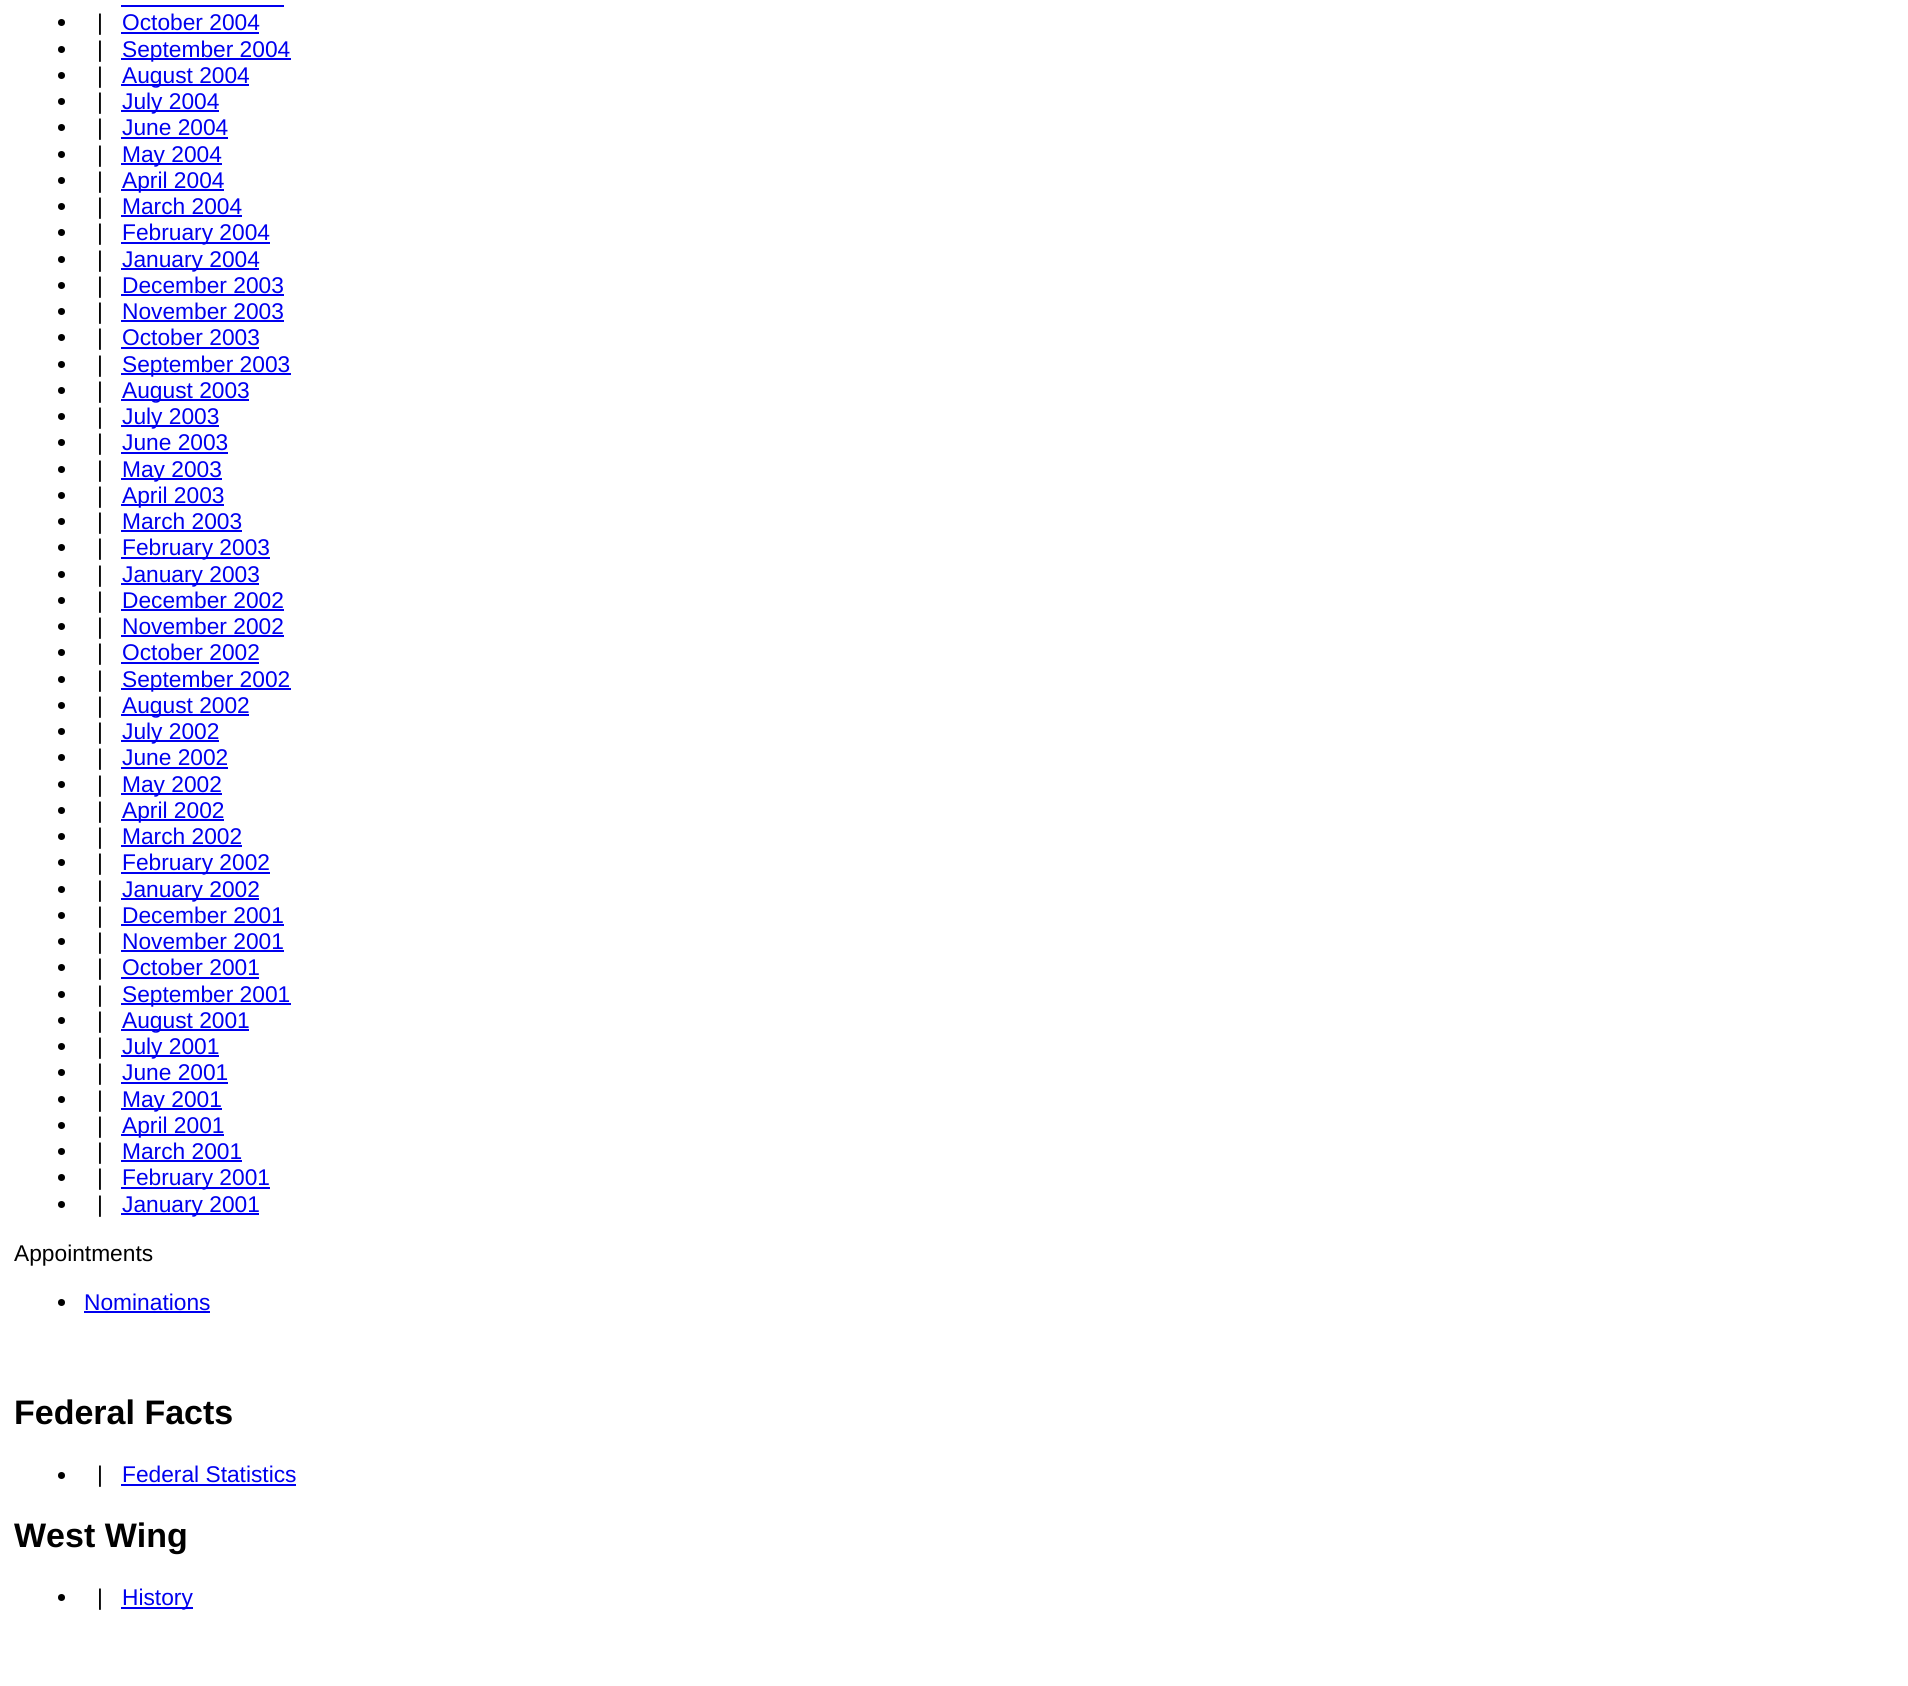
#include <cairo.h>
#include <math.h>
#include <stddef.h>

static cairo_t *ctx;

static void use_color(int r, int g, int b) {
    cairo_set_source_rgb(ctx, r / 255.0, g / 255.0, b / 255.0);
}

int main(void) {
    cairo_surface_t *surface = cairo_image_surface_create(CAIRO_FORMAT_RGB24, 1908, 1686);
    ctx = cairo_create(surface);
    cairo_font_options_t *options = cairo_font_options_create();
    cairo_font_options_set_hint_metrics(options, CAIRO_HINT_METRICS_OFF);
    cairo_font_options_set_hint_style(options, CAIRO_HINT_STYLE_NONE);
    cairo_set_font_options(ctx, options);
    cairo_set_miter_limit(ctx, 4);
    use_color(255, 255, 255);
    cairo_paint(ctx);
    use_color(0, 0, 238);
    cairo_rectangle(ctx, 121, 5, 163, 2);
    cairo_fill(ctx);
    use_color(0, 0, 0);
    cairo_arc(ctx, 61.5, 22.5, 3.5, 0, 2 * M_PI);
    cairo_fill(ctx);
    cairo_select_font_face(ctx, "Liberation Sans", CAIRO_FONT_SLANT_NORMAL, CAIRO_FONT_WEIGHT_NORMAL);
    cairo_set_font_size(ctx, 22.75);
    cairo_move_to(ctx, 97, 30);
    cairo_show_text(ctx, "|");
    use_color(0, 0, 238);
    cairo_move_to(ctx, 122, 30);
    cairo_show_text(ctx, "October 2004");
    cairo_rectangle(ctx, 121, 32, 138, 2);
    cairo_fill(ctx);
    use_color(0, 0, 0);
    cairo_arc(ctx, 61.5, 49.5, 3.5, 0, 2 * M_PI);
    cairo_fill(ctx);
    cairo_move_to(ctx, 97, 57);
    cairo_show_text(ctx, "|");
    use_color(0, 0, 238);
    cairo_rectangle(ctx, 121, 58, 170, 2);
    cairo_fill(ctx);
    cairo_move_to(ctx, 122, 57);
    cairo_show_text(ctx, "September 2004");
    use_color(0, 0, 0);
    cairo_new_path(ctx);
    cairo_arc(ctx, 61.5, 75.5, 3.5, 0, 2 * M_PI);
    cairo_fill(ctx);
    cairo_move_to(ctx, 97, 83);
    cairo_show_text(ctx, "|");
    use_color(0, 0, 238);
    cairo_rectangle(ctx, 121, 84, 128, 2);
    cairo_fill(ctx);
    cairo_move_to(ctx, 122, 83);
    cairo_show_text(ctx, "August 2004");
    use_color(0, 0, 0);
    cairo_new_path(ctx);
    cairo_arc(ctx, 61.5, 101.5, 3.5, 0, 2 * M_PI);
    cairo_fill(ctx);
    cairo_move_to(ctx, 97, 109);
    cairo_show_text(ctx, "|");
    use_color(0, 0, 238);
    cairo_rectangle(ctx, 121, 110, 98, 2);
    cairo_fill(ctx);
    cairo_move_to(ctx, 122, 109);
    cairo_show_text(ctx, "July 2004");
    use_color(0, 0, 0);
    cairo_new_path(ctx);
    cairo_arc(ctx, 61.5, 127.5, 3.5, 0, 2 * M_PI);
    cairo_fill(ctx);
    cairo_move_to(ctx, 97, 135);
    cairo_show_text(ctx, "|");
    use_color(0, 0, 238);
    cairo_move_to(ctx, 122, 135);
    cairo_show_text(ctx, "June 2004");
    cairo_rectangle(ctx, 121, 137, 107, 2);
    cairo_fill(ctx);
    use_color(0, 0, 0);
    cairo_arc(ctx, 61.5, 154.5, 3.5, 0, 2 * M_PI);
    cairo_fill(ctx);
    cairo_move_to(ctx, 97, 162);
    cairo_show_text(ctx, "|");
    use_color(0, 0, 238);
    cairo_rectangle(ctx, 121, 163, 101, 2);
    cairo_fill(ctx);
    cairo_move_to(ctx, 122, 162);
    cairo_show_text(ctx, "May 2004");
    use_color(0, 0, 0);
    cairo_new_path(ctx);
    cairo_arc(ctx, 61.5, 180.5, 3.5, 0, 2 * M_PI);
    cairo_fill(ctx);
    cairo_move_to(ctx, 97, 188);
    cairo_show_text(ctx, "|");
    use_color(0, 0, 238);
    cairo_rectangle(ctx, 121, 189, 103, 2);
    cairo_fill(ctx);
    cairo_move_to(ctx, 122, 188);
    cairo_show_text(ctx, "April 2004");
    use_color(0, 0, 0);
    cairo_new_path(ctx);
    cairo_arc(ctx, 61.5, 206.5, 3.5, 0, 2 * M_PI);
    cairo_fill(ctx);
    cairo_move_to(ctx, 97, 214);
    cairo_show_text(ctx, "|");
    use_color(0, 0, 238);
    cairo_move_to(ctx, 122, 214);
    cairo_show_text(ctx, "March 2004");
    cairo_rectangle(ctx, 121, 215, 121, 2);
    cairo_fill(ctx);
    use_color(0, 0, 0);
    cairo_arc(ctx, 61.5, 232.5, 3.5, 0, 2 * M_PI);
    cairo_fill(ctx);
    cairo_move_to(ctx, 97, 240);
    cairo_show_text(ctx, "|");
    use_color(0, 0, 238);
    cairo_rectangle(ctx, 121, 242, 149, 2);
    cairo_fill(ctx);
    cairo_move_to(ctx, 122, 240);
    cairo_show_text(ctx, "February 2004");
    use_color(0, 0, 0);
    cairo_new_path(ctx);
    cairo_arc(ctx, 61.5, 259.5, 3.5, 0, 2 * M_PI);
    cairo_fill(ctx);
    cairo_move_to(ctx, 97, 267);
    cairo_show_text(ctx, "|");
    use_color(0, 0, 238);
    cairo_rectangle(ctx, 121, 268, 138, 2);
    cairo_fill(ctx);
    cairo_move_to(ctx, 122, 267);
    cairo_show_text(ctx, "January 2004");
    use_color(0, 0, 0);
    cairo_new_path(ctx);
    cairo_arc(ctx, 61.5, 285.5, 3.5, 0, 2 * M_PI);
    cairo_fill(ctx);
    cairo_move_to(ctx, 97, 293);
    cairo_show_text(ctx, "|");
    use_color(0, 0, 238);
    cairo_move_to(ctx, 122, 293);
    cairo_show_text(ctx, "December 2003");
    cairo_rectangle(ctx, 121, 294, 163, 2);
    cairo_fill(ctx);
    use_color(0, 0, 0);
    cairo_arc(ctx, 61.5, 311.5, 3.5, 0, 2 * M_PI);
    cairo_fill(ctx);
    cairo_move_to(ctx, 97, 319);
    cairo_show_text(ctx, "|");
    use_color(0, 0, 238);
    cairo_move_to(ctx, 122, 319);
    cairo_show_text(ctx, "November 2003");
    cairo_rectangle(ctx, 121, 320, 163, 2);
    cairo_fill(ctx);
    use_color(0, 0, 0);
    cairo_arc(ctx, 61.5, 337.5, 3.5, 0, 2 * M_PI);
    cairo_fill(ctx);
    cairo_move_to(ctx, 97, 345);
    cairo_show_text(ctx, "|");
    use_color(0, 0, 238);
    cairo_move_to(ctx, 122, 345);
    cairo_show_text(ctx, "October 2003");
    cairo_rectangle(ctx, 121, 347, 138, 2);
    cairo_fill(ctx);
    use_color(0, 0, 0);
    cairo_arc(ctx, 61.5, 364.5, 3.5, 0, 2 * M_PI);
    cairo_fill(ctx);
    cairo_move_to(ctx, 97, 372);
    cairo_show_text(ctx, "|");
    use_color(0, 0, 238);
    cairo_rectangle(ctx, 121, 373, 170, 2);
    cairo_fill(ctx);
    cairo_move_to(ctx, 122, 372);
    cairo_show_text(ctx, "September 2003");
    use_color(0, 0, 0);
    cairo_new_path(ctx);
    cairo_arc(ctx, 61.5, 390.5, 3.5, 0, 2 * M_PI);
    cairo_fill(ctx);
    cairo_move_to(ctx, 97, 398);
    cairo_show_text(ctx, "|");
    use_color(0, 0, 238);
    cairo_rectangle(ctx, 121, 399, 128, 2);
    cairo_fill(ctx);
    cairo_move_to(ctx, 122, 398);
    cairo_show_text(ctx, "August 2003");
    use_color(0, 0, 0);
    cairo_new_path(ctx);
    cairo_arc(ctx, 61.5, 416.5, 3.5, 0, 2 * M_PI);
    cairo_fill(ctx);
    cairo_move_to(ctx, 97, 424);
    cairo_show_text(ctx, "|");
    use_color(0, 0, 238);
    cairo_rectangle(ctx, 121, 425, 98, 2);
    cairo_fill(ctx);
    cairo_move_to(ctx, 122, 424);
    cairo_show_text(ctx, "July 2003");
    use_color(0, 0, 0);
    cairo_new_path(ctx);
    cairo_arc(ctx, 61.5, 442.5, 3.5, 0, 2 * M_PI);
    cairo_fill(ctx);
    cairo_move_to(ctx, 97, 450);
    cairo_show_text(ctx, "|");
    use_color(0, 0, 238);
    cairo_move_to(ctx, 122, 450);
    cairo_show_text(ctx, "June 2003");
    cairo_rectangle(ctx, 121, 452, 107, 2);
    cairo_fill(ctx);
    use_color(0, 0, 0);
    cairo_arc(ctx, 61.5, 469.5, 3.5, 0, 2 * M_PI);
    cairo_fill(ctx);
    cairo_move_to(ctx, 97, 477);
    cairo_show_text(ctx, "|");
    use_color(0, 0, 238);
    cairo_rectangle(ctx, 121, 478, 101, 2);
    cairo_fill(ctx);
    cairo_move_to(ctx, 122, 477);
    cairo_show_text(ctx, "May 2003");
    use_color(0, 0, 0);
    cairo_new_path(ctx);
    cairo_arc(ctx, 61.5, 495.5, 3.5, 0, 2 * M_PI);
    cairo_fill(ctx);
    cairo_move_to(ctx, 97, 503);
    cairo_show_text(ctx, "|");
    use_color(0, 0, 238);
    cairo_rectangle(ctx, 121, 504, 103, 2);
    cairo_fill(ctx);
    cairo_move_to(ctx, 122, 503);
    cairo_show_text(ctx, "April 2003");
    use_color(0, 0, 0);
    cairo_new_path(ctx);
    cairo_arc(ctx, 61.5, 521.5, 3.5, 0, 2 * M_PI);
    cairo_fill(ctx);
    cairo_move_to(ctx, 97, 529);
    cairo_show_text(ctx, "|");
    use_color(0, 0, 238);
    cairo_move_to(ctx, 122, 529);
    cairo_show_text(ctx, "March 2003");
    cairo_rectangle(ctx, 121, 530, 121, 2);
    cairo_fill(ctx);
    use_color(0, 0, 0);
    cairo_arc(ctx, 61.5, 547.5, 3.5, 0, 2 * M_PI);
    cairo_fill(ctx);
    cairo_move_to(ctx, 97, 555);
    cairo_show_text(ctx, "|");
    use_color(0, 0, 238);
    cairo_rectangle(ctx, 121, 557, 149, 2);
    cairo_fill(ctx);
    cairo_move_to(ctx, 122, 555);
    cairo_show_text(ctx, "February 2003");
    use_color(0, 0, 0);
    cairo_new_path(ctx);
    cairo_arc(ctx, 61.5, 574.5, 3.5, 0, 2 * M_PI);
    cairo_fill(ctx);
    cairo_move_to(ctx, 97, 582);
    cairo_show_text(ctx, "|");
    use_color(0, 0, 238);
    cairo_rectangle(ctx, 121, 583, 138, 2);
    cairo_fill(ctx);
    cairo_move_to(ctx, 122, 582);
    cairo_show_text(ctx, "January 2003");
    use_color(0, 0, 0);
    cairo_new_path(ctx);
    cairo_arc(ctx, 61.5, 600.5, 3.5, 0, 2 * M_PI);
    cairo_fill(ctx);
    cairo_move_to(ctx, 97, 608);
    cairo_show_text(ctx, "|");
    use_color(0, 0, 238);
    cairo_move_to(ctx, 122, 608);
    cairo_show_text(ctx, "December 2002");
    cairo_rectangle(ctx, 121, 609, 163, 2);
    cairo_fill(ctx);
    use_color(0, 0, 0);
    cairo_arc(ctx, 61.5, 626.5, 3.5, 0, 2 * M_PI);
    cairo_fill(ctx);
    cairo_move_to(ctx, 97, 634);
    cairo_show_text(ctx, "|");
    use_color(0, 0, 238);
    cairo_move_to(ctx, 122, 634);
    cairo_show_text(ctx, "November 2002");
    cairo_rectangle(ctx, 121, 635, 163, 2);
    cairo_fill(ctx);
    use_color(0, 0, 0);
    cairo_arc(ctx, 61.5, 652.5, 3.5, 0, 2 * M_PI);
    cairo_fill(ctx);
    cairo_move_to(ctx, 97, 660);
    cairo_show_text(ctx, "|");
    use_color(0, 0, 238);
    cairo_move_to(ctx, 122, 660);
    cairo_show_text(ctx, "October 2002");
    cairo_rectangle(ctx, 121, 662, 138, 2);
    cairo_fill(ctx);
    use_color(0, 0, 0);
    cairo_arc(ctx, 61.5, 679.5, 3.5, 0, 2 * M_PI);
    cairo_fill(ctx);
    cairo_move_to(ctx, 97, 687);
    cairo_show_text(ctx, "|");
    use_color(0, 0, 238);
    cairo_rectangle(ctx, 121, 688, 170, 2);
    cairo_fill(ctx);
    cairo_move_to(ctx, 122, 687);
    cairo_show_text(ctx, "September 2002");
    use_color(0, 0, 0);
    cairo_new_path(ctx);
    cairo_arc(ctx, 61.5, 705.5, 3.5, 0, 2 * M_PI);
    cairo_fill(ctx);
    cairo_move_to(ctx, 97, 713);
    cairo_show_text(ctx, "|");
    use_color(0, 0, 238);
    cairo_rectangle(ctx, 121, 714, 128, 2);
    cairo_fill(ctx);
    cairo_move_to(ctx, 122, 713);
    cairo_show_text(ctx, "August 2002");
    use_color(0, 0, 0);
    cairo_new_path(ctx);
    cairo_arc(ctx, 61.5, 731.5, 3.5, 0, 2 * M_PI);
    cairo_fill(ctx);
    cairo_move_to(ctx, 97, 739);
    cairo_show_text(ctx, "|");
    use_color(0, 0, 238);
    cairo_rectangle(ctx, 121, 740, 98, 2);
    cairo_fill(ctx);
    cairo_move_to(ctx, 122, 739);
    cairo_show_text(ctx, "July 2002");
    use_color(0, 0, 0);
    cairo_new_path(ctx);
    cairo_arc(ctx, 61.5, 757.5, 3.5, 0, 2 * M_PI);
    cairo_fill(ctx);
    cairo_move_to(ctx, 97, 765);
    cairo_show_text(ctx, "|");
    use_color(0, 0, 238);
    cairo_move_to(ctx, 122, 765);
    cairo_show_text(ctx, "June 2002");
    cairo_rectangle(ctx, 121, 767, 107, 2);
    cairo_fill(ctx);
    use_color(0, 0, 0);
    cairo_arc(ctx, 61.5, 784.5, 3.5, 0, 2 * M_PI);
    cairo_fill(ctx);
    cairo_move_to(ctx, 97, 792);
    cairo_show_text(ctx, "|");
    use_color(0, 0, 238);
    cairo_rectangle(ctx, 121, 793, 101, 2);
    cairo_fill(ctx);
    cairo_move_to(ctx, 122, 792);
    cairo_show_text(ctx, "May 2002");
    use_color(0, 0, 0);
    cairo_new_path(ctx);
    cairo_arc(ctx, 61.5, 810.5, 3.5, 0, 2 * M_PI);
    cairo_fill(ctx);
    cairo_move_to(ctx, 97, 818);
    cairo_show_text(ctx, "|");
    use_color(0, 0, 238);
    cairo_rectangle(ctx, 121, 819, 103, 2);
    cairo_fill(ctx);
    cairo_move_to(ctx, 122, 818);
    cairo_show_text(ctx, "April 2002");
    use_color(0, 0, 0);
    cairo_new_path(ctx);
    cairo_arc(ctx, 61.5, 836.5, 3.5, 0, 2 * M_PI);
    cairo_fill(ctx);
    cairo_move_to(ctx, 97, 844);
    cairo_show_text(ctx, "|");
    use_color(0, 0, 238);
    cairo_move_to(ctx, 122, 844);
    cairo_show_text(ctx, "March 2002");
    cairo_rectangle(ctx, 121, 845, 121, 2);
    cairo_fill(ctx);
    use_color(0, 0, 0);
    cairo_arc(ctx, 61.5, 862.5, 3.5, 0, 2 * M_PI);
    cairo_fill(ctx);
    cairo_move_to(ctx, 97, 870);
    cairo_show_text(ctx, "|");
    use_color(0, 0, 238);
    cairo_rectangle(ctx, 121, 872, 149, 2);
    cairo_fill(ctx);
    cairo_move_to(ctx, 122, 870);
    cairo_show_text(ctx, "February 2002");
    use_color(0, 0, 0);
    cairo_new_path(ctx);
    cairo_arc(ctx, 61.5, 889.5, 3.5, 0, 2 * M_PI);
    cairo_fill(ctx);
    cairo_move_to(ctx, 97, 897);
    cairo_show_text(ctx, "|");
    use_color(0, 0, 238);
    cairo_rectangle(ctx, 121, 898, 138, 2);
    cairo_fill(ctx);
    cairo_move_to(ctx, 122, 897);
    cairo_show_text(ctx, "January 2002");
    use_color(0, 0, 0);
    cairo_new_path(ctx);
    cairo_arc(ctx, 61.5, 915.5, 3.5, 0, 2 * M_PI);
    cairo_fill(ctx);
    cairo_move_to(ctx, 97, 923);
    cairo_show_text(ctx, "|");
    use_color(0, 0, 238);
    cairo_move_to(ctx, 122, 923);
    cairo_show_text(ctx, "December 2001");
    cairo_rectangle(ctx, 121, 924, 163, 2);
    cairo_fill(ctx);
    use_color(0, 0, 0);
    cairo_arc(ctx, 61.5, 941.5, 3.5, 0, 2 * M_PI);
    cairo_fill(ctx);
    cairo_move_to(ctx, 97, 949);
    cairo_show_text(ctx, "|");
    use_color(0, 0, 238);
    cairo_move_to(ctx, 122, 949);
    cairo_show_text(ctx, "November 2001");
    cairo_rectangle(ctx, 121, 950, 163, 2);
    cairo_fill(ctx);
    use_color(0, 0, 0);
    cairo_arc(ctx, 61.5, 967.5, 3.5, 0, 2 * M_PI);
    cairo_fill(ctx);
    cairo_move_to(ctx, 97, 975);
    cairo_show_text(ctx, "|");
    use_color(0, 0, 238);
    cairo_move_to(ctx, 122, 975);
    cairo_show_text(ctx, "October 2001");
    cairo_rectangle(ctx, 121, 977, 138, 2);
    cairo_fill(ctx);
    use_color(0, 0, 0);
    cairo_arc(ctx, 61.5, 994.5, 3.5, 0, 2 * M_PI);
    cairo_fill(ctx);
    cairo_move_to(ctx, 97, 1002);
    cairo_show_text(ctx, "|");
    use_color(0, 0, 238);
    cairo_rectangle(ctx, 121, 1003, 170, 2);
    cairo_fill(ctx);
    cairo_move_to(ctx, 122, 1002);
    cairo_show_text(ctx, "September 2001");
    use_color(0, 0, 0);
    cairo_new_path(ctx);
    cairo_arc(ctx, 61.5, 1020.5, 3.5, 0, 2 * M_PI);
    cairo_fill(ctx);
    cairo_move_to(ctx, 97, 1028);
    cairo_show_text(ctx, "|");
    use_color(0, 0, 238);
    cairo_rectangle(ctx, 121, 1029, 128, 2);
    cairo_fill(ctx);
    cairo_move_to(ctx, 122, 1028);
    cairo_show_text(ctx, "August 2001");
    use_color(0, 0, 0);
    cairo_new_path(ctx);
    cairo_arc(ctx, 61.5, 1046.5, 3.5, 0, 2 * M_PI);
    cairo_fill(ctx);
    cairo_move_to(ctx, 97, 1054);
    cairo_show_text(ctx, "|");
    use_color(0, 0, 238);
    cairo_rectangle(ctx, 121, 1055, 98, 2);
    cairo_fill(ctx);
    cairo_move_to(ctx, 122, 1054);
    cairo_show_text(ctx, "July 2001");
    use_color(0, 0, 0);
    cairo_new_path(ctx);
    cairo_arc(ctx, 61.5, 1072.5, 3.5, 0, 2 * M_PI);
    cairo_fill(ctx);
    cairo_move_to(ctx, 97, 1080);
    cairo_show_text(ctx, "|");
    use_color(0, 0, 238);
    cairo_move_to(ctx, 122, 1080);
    cairo_show_text(ctx, "June 2001");
    cairo_rectangle(ctx, 121, 1082, 107, 2);
    cairo_fill(ctx);
    use_color(0, 0, 0);
    cairo_arc(ctx, 61.5, 1099.5, 3.5, 0, 2 * M_PI);
    cairo_fill(ctx);
    cairo_move_to(ctx, 97, 1107);
    cairo_show_text(ctx, "|");
    use_color(0, 0, 238);
    cairo_rectangle(ctx, 121, 1108, 101, 2);
    cairo_fill(ctx);
    cairo_move_to(ctx, 122, 1107);
    cairo_show_text(ctx, "May 2001");
    use_color(0, 0, 0);
    cairo_new_path(ctx);
    cairo_arc(ctx, 61.5, 1125.5, 3.5, 0, 2 * M_PI);
    cairo_fill(ctx);
    cairo_move_to(ctx, 97, 1133);
    cairo_show_text(ctx, "|");
    use_color(0, 0, 238);
    cairo_rectangle(ctx, 121, 1134, 103, 2);
    cairo_fill(ctx);
    cairo_move_to(ctx, 122, 1133);
    cairo_show_text(ctx, "April 2001");
    use_color(0, 0, 0);
    cairo_new_path(ctx);
    cairo_arc(ctx, 61.5, 1151.5, 3.5, 0, 2 * M_PI);
    cairo_fill(ctx);
    cairo_move_to(ctx, 97, 1159);
    cairo_show_text(ctx, "|");
    use_color(0, 0, 238);
    cairo_move_to(ctx, 122, 1159);
    cairo_show_text(ctx, "March 2001");
    cairo_rectangle(ctx, 121, 1160, 121, 2);
    cairo_fill(ctx);
    use_color(0, 0, 0);
    cairo_arc(ctx, 61.5, 1177.5, 3.5, 0, 2 * M_PI);
    cairo_fill(ctx);
    cairo_move_to(ctx, 97, 1185);
    cairo_show_text(ctx, "|");
    use_color(0, 0, 238);
    cairo_rectangle(ctx, 121, 1187, 149, 2);
    cairo_fill(ctx);
    cairo_move_to(ctx, 122, 1185);
    cairo_show_text(ctx, "February 2001");
    use_color(0, 0, 0);
    cairo_new_path(ctx);
    cairo_arc(ctx, 61.5, 1204.5, 3.5, 0, 2 * M_PI);
    cairo_fill(ctx);
    cairo_move_to(ctx, 97, 1212);
    cairo_show_text(ctx, "|");
    use_color(0, 0, 238);
    cairo_rectangle(ctx, 121, 1213, 138, 2);
    cairo_fill(ctx);
    cairo_move_to(ctx, 122, 1212);
    cairo_show_text(ctx, "January 2001");
    use_color(0, 0, 0);
    cairo_move_to(ctx, 14, 1261);
    cairo_show_text(ctx, "Appointments");
    cairo_new_path(ctx);
    cairo_arc(ctx, 61.5, 1302.5, 3.5, 0, 2 * M_PI);
    cairo_fill(ctx);
    use_color(0, 0, 238);
    cairo_move_to(ctx, 84, 1310);
    cairo_show_text(ctx, "Nominations");
    cairo_rectangle(ctx, 84, 1311, 126, 2);
    cairo_fill(ctx);
    cairo_select_font_face(ctx, "Liberation Sans", CAIRO_FONT_SLANT_NORMAL, CAIRO_FONT_WEIGHT_BOLD);
    cairo_set_font_size(ctx, 34);
    use_color(0, 0, 0);
    cairo_move_to(ctx, 14, 1424);
    cairo_show_text(ctx, "Federal Facts");
    cairo_new_path(ctx);
    cairo_arc(ctx, 61.5, 1475.5, 3.5, 0, 2 * M_PI);
    cairo_fill(ctx);
    cairo_select_font_face(ctx, "Liberation Sans", CAIRO_FONT_SLANT_NORMAL, CAIRO_FONT_WEIGHT_NORMAL);
    cairo_set_font_size(ctx, 22.75);
    cairo_move_to(ctx, 97, 1482);
    cairo_show_text(ctx, "|");
    use_color(0, 0, 238);
    cairo_move_to(ctx, 122, 1482);
    cairo_show_text(ctx, "Federal Statistics");
    cairo_rectangle(ctx, 121, 1484, 175, 2);
    cairo_fill(ctx);
    cairo_select_font_face(ctx, "Liberation Sans", CAIRO_FONT_SLANT_NORMAL, CAIRO_FONT_WEIGHT_BOLD);
    cairo_set_font_size(ctx, 34);
    use_color(0, 0, 0);
    cairo_move_to(ctx, 14, 1547);
    cairo_show_text(ctx, "West Wing");
    cairo_new_path(ctx);
    cairo_arc(ctx, 61.5, 1597.5, 3.5, 0, 2 * M_PI);
    cairo_fill(ctx);
    cairo_select_font_face(ctx, "Liberation Sans", CAIRO_FONT_SLANT_NORMAL, CAIRO_FONT_WEIGHT_NORMAL);
    cairo_set_font_size(ctx, 22.75);
    cairo_move_to(ctx, 97, 1605);
    cairo_show_text(ctx, "|");
    use_color(0, 0, 238);
    cairo_rectangle(ctx, 121, 1607, 72, 2);
    cairo_fill(ctx);
    cairo_move_to(ctx, 122, 1605);
    cairo_show_text(ctx, "History");
    cairo_surface_write_to_png(surface, "result.png");
    cairo_font_options_destroy(options);
    cairo_destroy(ctx);
    cairo_surface_destroy(surface);
    return 0;
}
